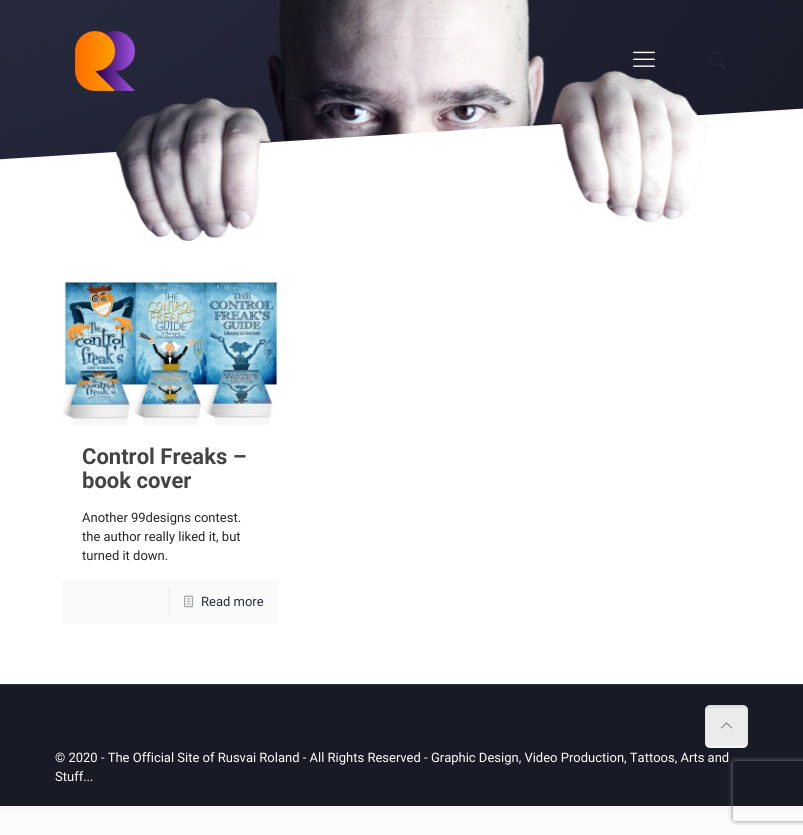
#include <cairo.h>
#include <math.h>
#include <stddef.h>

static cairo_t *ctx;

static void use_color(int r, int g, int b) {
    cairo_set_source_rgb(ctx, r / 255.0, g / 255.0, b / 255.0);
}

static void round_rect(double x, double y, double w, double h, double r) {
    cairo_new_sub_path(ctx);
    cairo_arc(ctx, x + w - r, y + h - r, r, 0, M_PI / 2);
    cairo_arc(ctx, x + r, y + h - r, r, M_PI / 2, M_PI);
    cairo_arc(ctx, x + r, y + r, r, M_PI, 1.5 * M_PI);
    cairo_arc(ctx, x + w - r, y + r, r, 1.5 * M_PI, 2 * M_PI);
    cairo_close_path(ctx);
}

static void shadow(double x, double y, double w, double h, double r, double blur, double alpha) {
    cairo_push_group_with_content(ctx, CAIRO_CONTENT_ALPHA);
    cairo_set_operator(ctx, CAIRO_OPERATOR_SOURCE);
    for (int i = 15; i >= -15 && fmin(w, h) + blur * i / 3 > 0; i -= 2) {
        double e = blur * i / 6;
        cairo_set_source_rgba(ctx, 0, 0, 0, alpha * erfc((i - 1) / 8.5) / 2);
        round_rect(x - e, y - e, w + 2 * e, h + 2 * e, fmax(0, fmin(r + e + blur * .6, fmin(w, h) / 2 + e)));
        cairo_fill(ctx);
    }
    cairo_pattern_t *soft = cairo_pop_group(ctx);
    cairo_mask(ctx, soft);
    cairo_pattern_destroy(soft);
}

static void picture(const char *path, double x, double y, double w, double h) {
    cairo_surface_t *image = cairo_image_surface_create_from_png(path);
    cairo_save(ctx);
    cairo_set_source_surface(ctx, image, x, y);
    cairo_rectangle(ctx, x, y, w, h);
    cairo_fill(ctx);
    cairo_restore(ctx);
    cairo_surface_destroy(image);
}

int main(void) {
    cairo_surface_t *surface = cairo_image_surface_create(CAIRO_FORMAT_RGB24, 803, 835);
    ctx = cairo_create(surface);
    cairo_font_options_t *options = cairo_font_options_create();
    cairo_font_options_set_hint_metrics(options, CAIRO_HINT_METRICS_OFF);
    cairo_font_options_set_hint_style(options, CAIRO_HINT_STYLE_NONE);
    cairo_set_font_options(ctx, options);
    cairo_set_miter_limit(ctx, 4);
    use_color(252, 252, 252);
    cairo_paint(ctx);
    use_color(0, 0, 0);
    shadow(0, 0, 803, 806, 0, 7.5, 0.06);
    use_color(255, 255, 255);
    cairo_rectangle(ctx, 0, 250, 803, 434);
    cairo_fill(ctx);
    picture("img1.png", 0, 0, 803, 250);
    picture("img2.png", 75, 31, 60, 60);
    picture("img3.png", 633, 51, 22, 16);
    picture("img4.png", 709, 52, 17, 18);
    picture("img5.png", 62, 282, 216, 143);
    cairo_select_font_face(ctx, "Roboto", CAIRO_FONT_SLANT_NORMAL, CAIRO_FONT_WEIGHT_BOLD);
    cairo_set_font_size(ctx, 22);
    use_color(68, 68, 68);
    cairo_move_to(ctx, 82, 464);
    cairo_show_text(ctx, "Control Freaks –");
    cairo_move_to(ctx, 82, 488);
    cairo_show_text(ctx, "book cover");
    cairo_select_font_face(ctx, "Roboto", CAIRO_FONT_SLANT_NORMAL, CAIRO_FONT_WEIGHT_NORMAL);
    cairo_set_font_size(ctx, 13);
    use_color(39, 39, 39);
    cairo_move_to(ctx, 82, 522);
    cairo_show_text(ctx, "Another 99designs contest.");
    cairo_move_to(ctx, 82, 541);
    cairo_show_text(ctx, "the author really liked it, but");
    cairo_move_to(ctx, 82, 560);
    cairo_show_text(ctx, "turned it down.");
    use_color(250, 250, 250);
    cairo_rectangle(ctx, 62, 580, 217, 44);
    cairo_fill(ctx);
    use_color(230, 230, 230);
    cairo_rectangle(ctx, 169, 587, 1, 30);
    cairo_fill(ctx);
    picture("img6.png", 184, 595, 10, 13);
    use_color(41, 43, 65);
    cairo_move_to(ctx, 201, 606);
    cairo_show_text(ctx, "Read more");
    use_color(24, 26, 38);
    cairo_rectangle(ctx, 0, 685, 803, 121);
    cairo_fill(ctx);
    use_color(47, 49, 60);
    cairo_rectangle(ctx, 0, 684, 803, 1);
    cairo_fill(ctx);
    use_color(247, 247, 247);
    round_rect(705, 705, 43, 43, 5);
    cairo_fill(ctx);
    cairo_set_source_rgba(ctx, 0, 0, 0, 0.05);
    cairo_rectangle(ctx, 706, 705, 41, 3);
    cairo_fill(ctx);
    cairo_rectangle(ctx, 705.5, 705.5, 42, 42);
    cairo_set_source_rgba(ctx, 0, 0, 0, 0.03);
    cairo_set_line_width(ctx, 1);
    cairo_stroke(ctx);
    cairo_set_source_rgba(ctx, 0, 0, 0, 0.05);
    cairo_rectangle(ctx, 705, 705, 43, 41);
    cairo_fill(ctx);
    picture("img7.png", 721, 722, 12, 7);
    use_color(255, 255, 255);
    cairo_move_to(ctx, 55, 762);
    cairo_show_text(ctx, "© 2020 - The Official Site of Rusvai Roland - All Rights Reserved - Graphic Design, Video Production, Tattoos, Arts and");
    cairo_move_to(ctx, 55, 781);
    cairo_show_text(ctx, "Stuff...");
    cairo_save(ctx);
    cairo_set_fill_rule(ctx, CAIRO_FILL_RULE_EVEN_ODD);
    cairo_new_path(ctx);
    cairo_move_to(ctx, 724, 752);
    cairo_line_to(ctx, 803, 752);
    cairo_line_to(ctx, 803, 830);
    cairo_line_to(ctx, 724, 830);
    cairo_close_path(ctx);
    cairo_move_to(ctx, 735, 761);
    cairo_line_to(ctx, 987, 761);
    cairo_curve_to(ctx, 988, 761, 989, 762, 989, 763);
    cairo_line_to(ctx, 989, 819);
    cairo_curve_to(ctx, 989, 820, 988, 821, 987, 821);
    cairo_line_to(ctx, 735, 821);
    cairo_curve_to(ctx, 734, 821, 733, 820, 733, 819);
    cairo_line_to(ctx, 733, 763);
    cairo_curve_to(ctx, 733, 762, 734, 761, 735, 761);
    cairo_close_path(ctx);
    cairo_clip(ctx);
    use_color(128, 128, 128);
    shadow(733, 761, 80, 60, 2, 2.5, 1);
    cairo_restore(ctx);
    cairo_surface_write_to_png(surface, "result.png");
    cairo_font_options_destroy(options);
    cairo_destroy(ctx);
    cairo_surface_destroy(surface);
    return 0;
}
